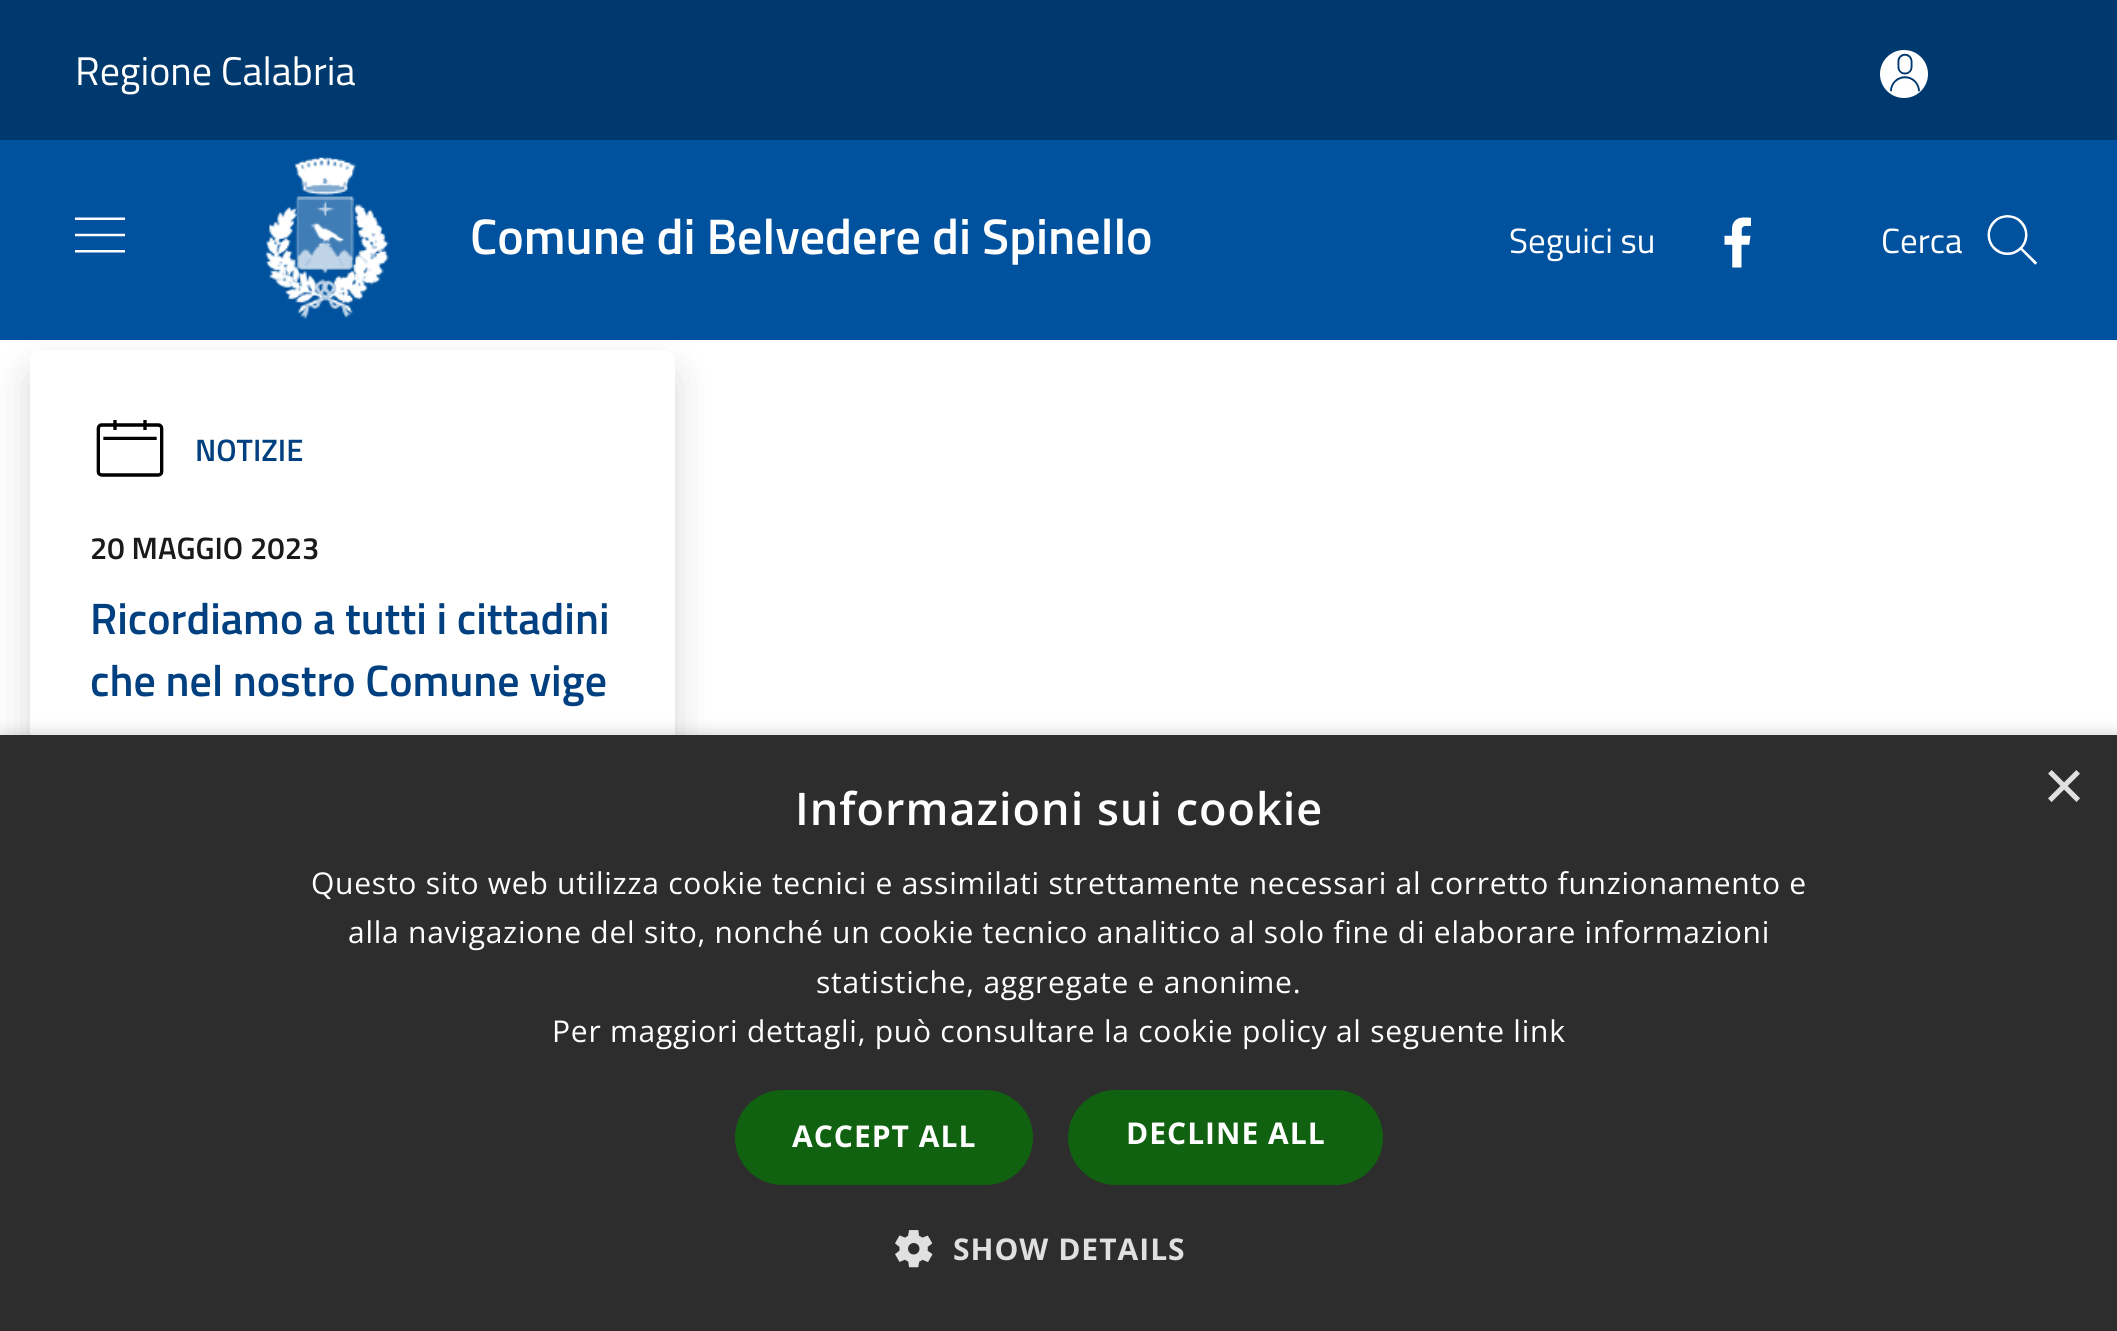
#include <cairo.h>
#include <math.h>
#include <stddef.h>

static cairo_t *ctx;

static void use_color(int r, int g, int b) {
    cairo_set_source_rgb(ctx, r / 255.0, g / 255.0, b / 255.0);
}

static void spaced_text(double x, double y, const char *s, double letter, double word) {
    cairo_move_to(ctx, x, y);
    while (*s) {
        char ch[5] = {0};
        int n = 0;
        do ch[n++] = *s++; while ((*s & 0xC0) == 0x80);
        cairo_show_text(ctx, ch);
        cairo_rel_move_to(ctx, letter + word * (*ch == ' '), 0);
    }
}

static void round_rect(double x, double y, double w, double h, double r) {
    cairo_new_sub_path(ctx);
    cairo_arc(ctx, x + w - r, y + h - r, r, 0, M_PI / 2);
    cairo_arc(ctx, x + r, y + h - r, r, M_PI / 2, M_PI);
    cairo_arc(ctx, x + r, y + r, r, M_PI, 1.5 * M_PI);
    cairo_arc(ctx, x + w - r, y + r, r, 1.5 * M_PI, 2 * M_PI);
    cairo_close_path(ctx);
}

static void shadow(double x, double y, double w, double h, double r, double blur, double alpha) {
    cairo_push_group_with_content(ctx, CAIRO_CONTENT_ALPHA);
    cairo_set_operator(ctx, CAIRO_OPERATOR_SOURCE);
    for (int i = 15; i >= -15 && fmin(w, h) + blur * i / 3 > 0; i -= 2) {
        double e = blur * i / 6;
        cairo_set_source_rgba(ctx, 0, 0, 0, alpha * erfc((i - 1) / 8.5) / 2);
        round_rect(x - e, y - e, w + 2 * e, h + 2 * e, fmax(0, fmin(r + e + blur * .6, fmin(w, h) / 2 + e)));
        cairo_fill(ctx);
    }
    cairo_pattern_t *soft = cairo_pop_group(ctx);
    cairo_mask(ctx, soft);
    cairo_pattern_destroy(soft);
}

static void picture(const char *path, double x, double y, double w, double h) {
    cairo_surface_t *image = cairo_image_surface_create_from_png(path);
    cairo_save(ctx);
    cairo_set_source_surface(ctx, image, x, y);
    cairo_rectangle(ctx, x, y, w, h);
    cairo_fill(ctx);
    cairo_restore(ctx);
    cairo_surface_destroy(image);
}

int main(void) {
    cairo_surface_t *surface = cairo_image_surface_create(CAIRO_FORMAT_RGB24, 2117, 1331);
    ctx = cairo_create(surface);
    cairo_font_options_t *options = cairo_font_options_create();
    cairo_font_options_set_hint_metrics(options, CAIRO_HINT_METRICS_OFF);
    cairo_font_options_set_hint_style(options, CAIRO_HINT_STYLE_NONE);
    cairo_set_font_options(ctx, options);
    cairo_set_miter_limit(ctx, 4);
    use_color(255, 255, 255);
    cairo_paint(ctx);
    use_color(0, 57, 110);
    cairo_rectangle(ctx, 0, 0, 2117, 140);
    cairo_fill(ctx);
    cairo_select_font_face(ctx, "Titillium Web", CAIRO_FONT_SLANT_NORMAL, CAIRO_FONT_WEIGHT_NORMAL);
    cairo_set_font_size(ctx, 40);
    use_color(255, 255, 255);
    cairo_move_to(ctx, 75, 85);
    cairo_show_text(ctx, "Regione Calabria");
    cairo_new_path(ctx);
    cairo_arc(ctx, 1904, 74, 24, 0, 2 * M_PI);
    cairo_fill(ctx);
    picture("img1.png", 1890, 53, 30, 39);
    use_color(0, 0, 0);
    shadow(30, 370, 645, 960, 10, 20, 0.15);
    use_color(0, 82, 158);
    cairo_rectangle(ctx, 0, 140, 2117, 200);
    cairo_fill(ctx);
    picture("img2.png", 75, 217, 50, 36);
    picture("img3.png", 265, 157, 124, 162);
    cairo_select_font_face(ctx, "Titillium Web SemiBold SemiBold", CAIRO_FONT_SLANT_NORMAL, CAIRO_FONT_WEIGHT_NORMAL);
    cairo_set_font_size(ctx, 50);
    use_color(255, 255, 255);
    cairo_move_to(ctx, 470, 254);
    cairo_show_text(ctx, "Comune di Belvedere di Spinello");
    cairo_select_font_face(ctx, "Titillium Web", CAIRO_FONT_SLANT_NORMAL, CAIRO_FONT_WEIGHT_NORMAL);
    cairo_set_font_size(ctx, 35);
    cairo_move_to(ctx, 1509, 253);
    cairo_show_text(ctx, "Seguici su");
    picture("img4.png", 1724, 217, 27, 51);
    cairo_move_to(ctx, 1881, 253);
    cairo_show_text(ctx, "Cerca");
    picture("img5.png", 1987, 215, 51, 50);
    round_rect(30, 350, 645, 960, 10);
    cairo_fill(ctx);
    picture("img6.png", 96, 420, 68, 57);
    cairo_select_font_face(ctx, "Titillium Web SemiBold SemiBold", CAIRO_FONT_SLANT_NORMAL, CAIRO_FONT_WEIGHT_NORMAL);
    cairo_set_font_size(ctx, 31);
    use_color(0, 64, 128);
    cairo_move_to(ctx, 195, 461);
    cairo_show_text(ctx, "NOTIZIE");
    use_color(26, 26, 26);
    cairo_move_to(ctx, 90, 559);
    cairo_show_text(ctx, "20 MAGGIO 2023");
    cairo_set_font_size(ctx, 44);
    use_color(0, 64, 128);
    cairo_move_to(ctx, 90, 634);
    cairo_show_text(ctx, "Ricordiamo a tutti i cittadini");
    cairo_move_to(ctx, 90, 696);
    cairo_show_text(ctx, "che nel nostro Comune vige");
    use_color(0, 0, 0);
    shadow(3, 740, 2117, 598, 0, 10, 0.35);
    use_color(45, 45, 45);
    cairo_rectangle(ctx, 0, 735, 2117, 596);
    cairo_fill(ctx);
    cairo_select_font_face(ctx, "Liberation Sans", CAIRO_FONT_SLANT_NORMAL, CAIRO_FONT_WEIGHT_NORMAL);
    cairo_set_font_size(ctx, 72);
    use_color(224, 224, 224);
    cairo_move_to(ctx, 2043, 810);
    cairo_show_text(ctx, "×");
    cairo_select_font_face(ctx, "Open Sans SemiBold", CAIRO_FONT_SLANT_NORMAL, CAIRO_FONT_WEIGHT_NORMAL);
    cairo_set_font_size(ctx, 45);
    use_color(255, 255, 255);
    spaced_text(795, 825, "Informazioni sui cookie", 1, 0);
    cairo_select_font_face(ctx, "Open Sans", CAIRO_FONT_SLANT_NORMAL, CAIRO_FONT_WEIGHT_NORMAL);
    cairo_set_font_size(ctx, 30);
    spaced_text(311, 894, "Questo sito web utilizza cookie tecnici e assimilati strettamente necessari al corretto funzionamento e", 0.75, 0);
    spaced_text(348, 943, "alla navigazione del sito, nonché un cookie tecnico analitico al solo fine di elaborare informazioni", 0.75, 0);
    spaced_text(816, 993, "statistiche, aggregate e anonime.", 0.75, 0);
    spaced_text(552, 1042, "Per maggiori dettagli, può consultare la cookie policy al seguente link", 0.75, 0);
    use_color(16, 97, 16);
    round_rect(735, 1090, 298, 95, 47.5);
    cairo_fill(ctx);
    cairo_select_font_face(ctx, "Open Sans", CAIRO_FONT_SLANT_NORMAL, CAIRO_FONT_WEIGHT_BOLD);
    use_color(255, 255, 255);
    spaced_text(792, 1147, "ACCEPT ALL", 1, 0);
    use_color(16, 97, 16);
    round_rect(1068, 1090, 315, 95, 47.5);
    cairo_fill(ctx);
    use_color(255, 255, 255);
    spaced_text(1126, 1144, "DECLINE ALL", 1, 0);
    picture("img7.png", 895, 1230, 38, 38);
    use_color(224, 224, 224);
    spaced_text(953, 1260, "SHOW DETAILS", 1, 0);
    cairo_surface_write_to_png(surface, "result.png");
    cairo_font_options_destroy(options);
    cairo_destroy(ctx);
    cairo_surface_destroy(surface);
    return 0;
}
